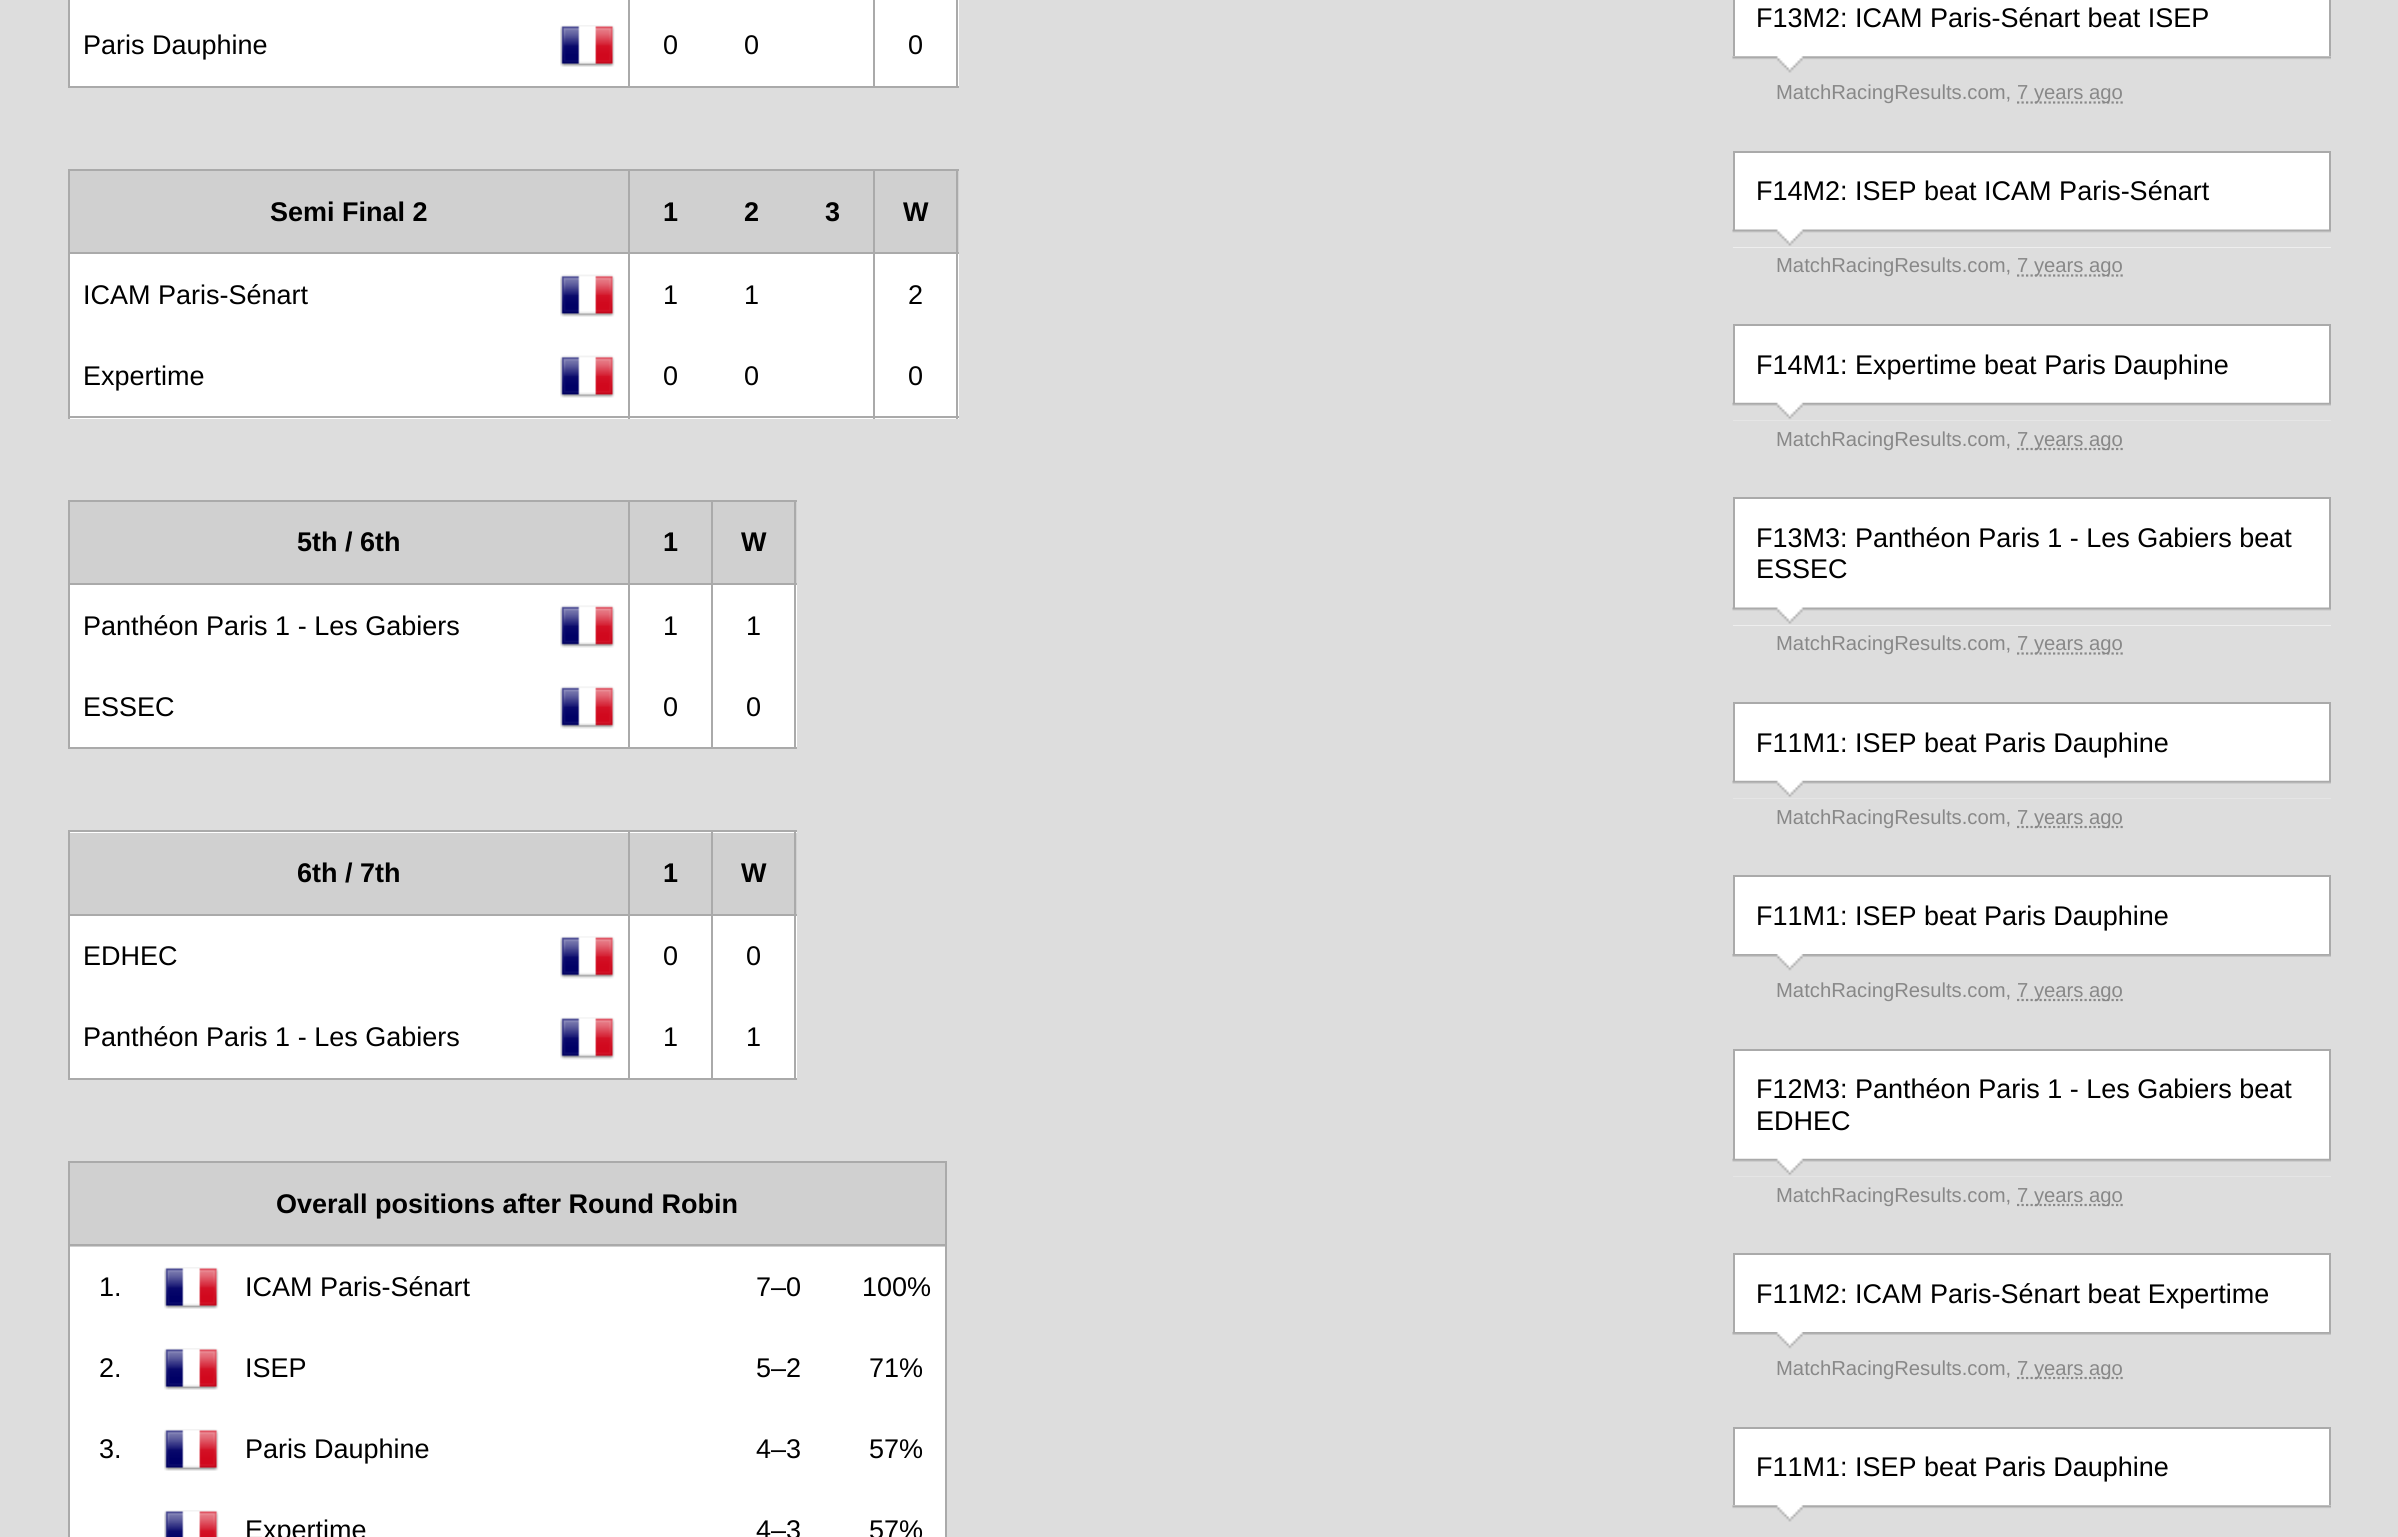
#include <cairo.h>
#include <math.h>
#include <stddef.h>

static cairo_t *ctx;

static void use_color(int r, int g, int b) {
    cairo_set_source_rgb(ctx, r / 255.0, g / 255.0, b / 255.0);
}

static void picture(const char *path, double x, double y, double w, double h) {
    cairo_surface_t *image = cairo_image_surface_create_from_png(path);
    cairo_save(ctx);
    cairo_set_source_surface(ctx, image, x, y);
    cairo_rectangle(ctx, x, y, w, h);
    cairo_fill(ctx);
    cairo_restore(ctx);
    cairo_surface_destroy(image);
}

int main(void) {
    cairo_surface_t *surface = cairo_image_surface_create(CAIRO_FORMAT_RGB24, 2398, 1537);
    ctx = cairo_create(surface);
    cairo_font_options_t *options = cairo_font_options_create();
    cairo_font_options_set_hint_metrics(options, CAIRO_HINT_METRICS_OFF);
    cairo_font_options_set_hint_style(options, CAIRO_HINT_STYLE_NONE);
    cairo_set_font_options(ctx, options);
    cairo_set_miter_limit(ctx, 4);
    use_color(221, 221, 221);
    cairo_paint(ctx);
    use_color(255, 255, 255);
    cairo_rectangle(ctx, 70, 0, 889, 86);
    cairo_fill(ctx);
    use_color(170, 170, 170);
    cairo_rectangle(ctx, 956, 0, 2, 88);
    cairo_fill(ctx);
    cairo_rectangle(ctx, 68, 86, 891, 2);
    cairo_fill(ctx);
    cairo_rectangle(ctx, 68, 0, 2, 88);
    cairo_fill(ctx);
    cairo_select_font_face(ctx, "Liberation Sans", CAIRO_FONT_SLANT_NORMAL, CAIRO_FONT_WEIGHT_NORMAL);
    cairo_set_font_size(ctx, 27);
    use_color(0, 0, 0);
    cairo_move_to(ctx, 83, 54);
    cairo_show_text(ctx, "Paris Dauphine");
    use_color(170, 170, 170);
    cairo_rectangle(ctx, 628, 0, 2, 88);
    cairo_fill(ctx);
    picture("img1.png", 560, 25, 55, 42);
    use_color(0, 0, 0);
    cairo_move_to(ctx, 663, 54);
    cairo_show_text(ctx, "0");
    cairo_move_to(ctx, 744, 54);
    cairo_show_text(ctx, "0");
    use_color(170, 170, 170);
    cairo_rectangle(ctx, 873, 0, 2, 88);
    cairo_fill(ctx);
    use_color(0, 0, 0);
    cairo_move_to(ctx, 908, 54);
    cairo_show_text(ctx, "0");
    use_color(255, 255, 255);
    cairo_rectangle(ctx, 70, 254, 889, 165);
    cairo_fill(ctx);
    use_color(170, 170, 170);
    cairo_rectangle(ctx, 68, 169, 891, 2);
    cairo_fill(ctx);
    use_color(208, 208, 208);
    cairo_rectangle(ctx, 875, 171, 84, 81);
    cairo_fill(ctx);
    use_color(170, 170, 170);
    cairo_rectangle(ctx, 956, 169, 2, 250);
    cairo_fill(ctx);
    cairo_rectangle(ctx, 68, 416, 891, 2);
    cairo_fill(ctx);
    cairo_rectangle(ctx, 68, 169, 2, 250);
    cairo_fill(ctx);
    use_color(208, 208, 208);
    cairo_rectangle(ctx, 70, 171, 558, 81);
    cairo_fill(ctx);
    use_color(170, 170, 170);
    cairo_rectangle(ctx, 873, 252, 2, 167);
    cairo_fill(ctx);
    cairo_rectangle(ctx, 873, 252, 86, 2);
    cairo_fill(ctx);
    cairo_rectangle(ctx, 873, 169, 2, 85);
    cairo_fill(ctx);
    cairo_rectangle(ctx, 628, 252, 2, 167);
    cairo_fill(ctx);
    cairo_rectangle(ctx, 628, 252, 247, 2);
    cairo_fill(ctx);
    cairo_rectangle(ctx, 628, 169, 2, 85);
    cairo_fill(ctx);
    cairo_rectangle(ctx, 68, 252, 562, 2);
    cairo_fill(ctx);
    cairo_select_font_face(ctx, "Liberation Sans", CAIRO_FONT_SLANT_NORMAL, CAIRO_FONT_WEIGHT_BOLD);
    use_color(0, 0, 0);
    cairo_move_to(ctx, 270, 221);
    cairo_show_text(ctx, "Semi Final 2");
    use_color(208, 208, 208);
    cairo_rectangle(ctx, 630, 171, 243, 81);
    cairo_fill(ctx);
    use_color(0, 0, 0);
    cairo_move_to(ctx, 663, 221);
    cairo_show_text(ctx, "1");
    cairo_move_to(ctx, 744, 221);
    cairo_show_text(ctx, "2");
    cairo_move_to(ctx, 825, 221);
    cairo_show_text(ctx, "3");
    cairo_move_to(ctx, 903, 221);
    cairo_show_text(ctx, "W");
    cairo_select_font_face(ctx, "Liberation Sans", CAIRO_FONT_SLANT_NORMAL, CAIRO_FONT_WEIGHT_NORMAL);
    cairo_move_to(ctx, 83, 304);
    cairo_show_text(ctx, "ICAM Paris-Sénart");
    picture("img2.png", 560, 274, 55, 43);
    cairo_move_to(ctx, 663, 304);
    cairo_show_text(ctx, "1");
    cairo_move_to(ctx, 744, 304);
    cairo_show_text(ctx, "1");
    cairo_move_to(ctx, 908, 304);
    cairo_show_text(ctx, "2");
    cairo_move_to(ctx, 83, 385);
    cairo_show_text(ctx, "Expertime");
    picture("img2.png", 560, 355, 55, 43);
    cairo_move_to(ctx, 663, 385);
    cairo_show_text(ctx, "0");
    cairo_move_to(ctx, 744, 385);
    cairo_show_text(ctx, "0");
    cairo_move_to(ctx, 908, 385);
    cairo_show_text(ctx, "0");
    use_color(255, 255, 255);
    cairo_rectangle(ctx, 70, 585, 727, 162);
    cairo_fill(ctx);
    use_color(170, 170, 170);
    cairo_rectangle(ctx, 68, 500, 729, 2);
    cairo_fill(ctx);
    use_color(208, 208, 208);
    cairo_rectangle(ctx, 713, 502, 84, 81);
    cairo_fill(ctx);
    use_color(170, 170, 170);
    cairo_rectangle(ctx, 794, 500, 2, 249);
    cairo_fill(ctx);
    cairo_rectangle(ctx, 68, 747, 729, 2);
    cairo_fill(ctx);
    cairo_rectangle(ctx, 68, 500, 2, 249);
    cairo_fill(ctx);
    use_color(208, 208, 208);
    cairo_rectangle(ctx, 70, 502, 558, 81);
    cairo_fill(ctx);
    use_color(170, 170, 170);
    cairo_rectangle(ctx, 711, 583, 2, 166);
    cairo_fill(ctx);
    cairo_rectangle(ctx, 711, 583, 86, 2);
    cairo_fill(ctx);
    cairo_rectangle(ctx, 711, 500, 2, 85);
    cairo_fill(ctx);
    cairo_rectangle(ctx, 628, 583, 2, 166);
    cairo_fill(ctx);
    cairo_rectangle(ctx, 628, 583, 85, 2);
    cairo_fill(ctx);
    cairo_rectangle(ctx, 628, 500, 2, 85);
    cairo_fill(ctx);
    cairo_rectangle(ctx, 68, 583, 562, 2);
    cairo_fill(ctx);
    cairo_select_font_face(ctx, "Liberation Sans", CAIRO_FONT_SLANT_NORMAL, CAIRO_FONT_WEIGHT_BOLD);
    use_color(0, 0, 0);
    cairo_move_to(ctx, 297, 551);
    cairo_show_text(ctx, "5th / 6th");
    use_color(208, 208, 208);
    cairo_rectangle(ctx, 630, 502, 81, 81);
    cairo_fill(ctx);
    use_color(0, 0, 0);
    cairo_move_to(ctx, 663, 551);
    cairo_show_text(ctx, "1");
    cairo_move_to(ctx, 741, 551);
    cairo_show_text(ctx, "W");
    cairo_select_font_face(ctx, "Liberation Sans", CAIRO_FONT_SLANT_NORMAL, CAIRO_FONT_WEIGHT_NORMAL);
    cairo_move_to(ctx, 83, 635);
    cairo_show_text(ctx, "Panthéon Paris 1 - Les Gabiers");
    picture("img3.png", 560, 605, 55, 43);
    cairo_move_to(ctx, 663, 635);
    cairo_show_text(ctx, "1");
    cairo_move_to(ctx, 746, 635);
    cairo_show_text(ctx, "1");
    cairo_move_to(ctx, 83, 716);
    cairo_show_text(ctx, "ESSEC");
    picture("img3.png", 560, 686, 55, 43);
    cairo_move_to(ctx, 663, 716);
    cairo_show_text(ctx, "0");
    cairo_move_to(ctx, 746, 716);
    cairo_show_text(ctx, "0");
    use_color(255, 255, 255);
    cairo_rectangle(ctx, 70, 832, 727, 246);
    cairo_fill(ctx);
    use_color(170, 170, 170);
    cairo_rectangle(ctx, 68, 830, 729, 2);
    cairo_fill(ctx);
    use_color(208, 208, 208);
    cairo_rectangle(ctx, 713, 833, 84, 81);
    cairo_fill(ctx);
    use_color(170, 170, 170);
    cairo_rectangle(ctx, 794, 830, 2, 250);
    cairo_fill(ctx);
    cairo_rectangle(ctx, 68, 1078, 729, 2);
    cairo_fill(ctx);
    cairo_rectangle(ctx, 68, 830, 2, 250);
    cairo_fill(ctx);
    use_color(208, 208, 208);
    cairo_rectangle(ctx, 70, 833, 558, 81);
    cairo_fill(ctx);
    use_color(170, 170, 170);
    cairo_rectangle(ctx, 711, 914, 2, 166);
    cairo_fill(ctx);
    cairo_rectangle(ctx, 711, 914, 86, 2);
    cairo_fill(ctx);
    cairo_rectangle(ctx, 711, 830, 2, 86);
    cairo_fill(ctx);
    cairo_rectangle(ctx, 628, 914, 2, 166);
    cairo_fill(ctx);
    cairo_rectangle(ctx, 628, 914, 85, 2);
    cairo_fill(ctx);
    cairo_rectangle(ctx, 628, 830, 2, 86);
    cairo_fill(ctx);
    cairo_rectangle(ctx, 68, 914, 562, 2);
    cairo_fill(ctx);
    cairo_select_font_face(ctx, "Liberation Sans", CAIRO_FONT_SLANT_NORMAL, CAIRO_FONT_WEIGHT_BOLD);
    use_color(0, 0, 0);
    cairo_move_to(ctx, 297, 882);
    cairo_show_text(ctx, "6th / 7th");
    use_color(208, 208, 208);
    cairo_rectangle(ctx, 630, 833, 81, 81);
    cairo_fill(ctx);
    use_color(0, 0, 0);
    cairo_move_to(ctx, 663, 882);
    cairo_show_text(ctx, "1");
    cairo_move_to(ctx, 741, 882);
    cairo_show_text(ctx, "W");
    cairo_select_font_face(ctx, "Liberation Sans", CAIRO_FONT_SLANT_NORMAL, CAIRO_FONT_WEIGHT_NORMAL);
    cairo_move_to(ctx, 83, 965);
    cairo_show_text(ctx, "EDHEC");
    picture("img4.png", 560, 936, 55, 43);
    cairo_move_to(ctx, 663, 965);
    cairo_show_text(ctx, "0");
    cairo_move_to(ctx, 746, 965);
    cairo_show_text(ctx, "0");
    cairo_move_to(ctx, 83, 1046);
    cairo_show_text(ctx, "Panthéon Paris 1 - Les Gabiers");
    picture("img4.png", 560, 1017, 55, 43);
    cairo_move_to(ctx, 663, 1046);
    cairo_show_text(ctx, "1");
    cairo_move_to(ctx, 746, 1046);
    cairo_show_text(ctx, "1");
    use_color(255, 255, 255);
    cairo_rectangle(ctx, 70, 1247, 875, 290);
    cairo_fill(ctx);
    use_color(170, 170, 170);
    cairo_rectangle(ctx, 68, 1161, 879, 2);
    cairo_fill(ctx);
    cairo_rectangle(ctx, 945, 1161, 2, 376);
    cairo_fill(ctx);
    cairo_rectangle(ctx, 68, 1161, 2, 376);
    cairo_fill(ctx);
    use_color(208, 208, 208);
    cairo_rectangle(ctx, 70, 1163, 875, 84);
    cairo_fill(ctx);
    use_color(170, 170, 170);
    cairo_rectangle(ctx, 68, 1244, 879, 2);
    cairo_fill(ctx);
    cairo_select_font_face(ctx, "Liberation Sans", CAIRO_FONT_SLANT_NORMAL, CAIRO_FONT_WEIGHT_BOLD);
    use_color(0, 0, 0);
    cairo_move_to(ctx, 276, 1213);
    cairo_show_text(ctx, "Overall positions after Round Robin");
    cairo_select_font_face(ctx, "Liberation Sans", CAIRO_FONT_SLANT_NORMAL, CAIRO_FONT_WEIGHT_NORMAL);
    cairo_move_to(ctx, 99, 1296);
    cairo_show_text(ctx, "1.");
    picture("img1.png", 164, 1267, 55, 42);
    cairo_move_to(ctx, 245, 1296);
    cairo_show_text(ctx, "ICAM Paris-Sénart");
    cairo_move_to(ctx, 756, 1296);
    cairo_show_text(ctx, "7–0");
    cairo_move_to(ctx, 862, 1296);
    cairo_show_text(ctx, "100%");
    cairo_move_to(ctx, 99, 1377);
    cairo_show_text(ctx, "2.");
    picture("img1.png", 164, 1348, 55, 42);
    cairo_move_to(ctx, 245, 1377);
    cairo_show_text(ctx, "ISEP");
    cairo_move_to(ctx, 756, 1377);
    cairo_show_text(ctx, "5–2");
    cairo_move_to(ctx, 869, 1377);
    cairo_show_text(ctx, "71%");
    cairo_move_to(ctx, 99, 1458);
    cairo_show_text(ctx, "3.");
    picture("img1.png", 164, 1429, 55, 42);
    cairo_move_to(ctx, 245, 1458);
    cairo_show_text(ctx, "Paris Dauphine");
    cairo_move_to(ctx, 756, 1458);
    cairo_show_text(ctx, "4–3");
    cairo_move_to(ctx, 869, 1458);
    cairo_show_text(ctx, "57%");
    picture("img5.png", 164, 1510, 55, 27);
    cairo_move_to(ctx, 245, 1539);
    cairo_show_text(ctx, "Expertime");
    cairo_move_to(ctx, 756, 1539);
    cairo_show_text(ctx, "4–3");
    cairo_move_to(ctx, 869, 1539);
    cairo_show_text(ctx, "57%");
    use_color(255, 255, 255);
    cairo_rectangle(ctx, 1733, 0, 598, 71);
    cairo_fill(ctx);
    picture("img6.png", 1732, 56, 599, 18);
    use_color(170, 170, 170);
    cairo_rectangle(ctx, 2329, 0, 2, 56);
    cairo_fill(ctx);
    cairo_rectangle(ctx, 1733, 0, 2, 56);
    cairo_fill(ctx);
    use_color(0, 0, 0);
    cairo_move_to(ctx, 1756, 27);
    cairo_show_text(ctx, "F13M2: ICAM Paris-Sénart beat ISEP");
    cairo_set_font_size(ctx, 20.25);
    use_color(136, 136, 136);
    cairo_move_to(ctx, 1776, 99);
    cairo_show_text(ctx, "MatchRacingResults.com,");
    cairo_new_path(ctx);
    cairo_move_to(ctx, 2017, 102.5);
    cairo_line_to(ctx, 2123, 102.5);
    cairo_set_line_width(ctx, 2.2);
    cairo_set_dash(ctx, (double[]){2.25, 2.25}, 2, 0);
    cairo_stroke(ctx);
    cairo_move_to(ctx, 2017, 99);
    cairo_show_text(ctx, "7 years ago");
    use_color(255, 255, 255);
    cairo_rectangle(ctx, 1733, 153, 598, 95);
    cairo_fill(ctx);
    picture("img7.png", 1732, 229, 599, 19);
    use_color(170, 170, 170);
    cairo_rectangle(ctx, 1733, 151, 598, 2);
    cairo_fill(ctx);
    cairo_rectangle(ctx, 2329, 151, 2, 79);
    cairo_fill(ctx);
    cairo_rectangle(ctx, 1733, 151, 2, 79);
    cairo_fill(ctx);
    cairo_set_font_size(ctx, 27);
    use_color(0, 0, 0);
    cairo_move_to(ctx, 1756, 200);
    cairo_show_text(ctx, "F14M2: ISEP beat ICAM Paris-Sénart");
    cairo_set_font_size(ctx, 20.25);
    use_color(136, 136, 136);
    cairo_move_to(ctx, 1776, 272);
    cairo_show_text(ctx, "MatchRacingResults.com,");
    cairo_new_path(ctx);
    cairo_move_to(ctx, 2017, 275.5);
    cairo_line_to(ctx, 2123, 275.5);
    cairo_stroke(ctx);
    cairo_move_to(ctx, 2017, 272);
    cairo_show_text(ctx, "7 years ago");
    use_color(255, 255, 255);
    cairo_rectangle(ctx, 1733, 326, 598, 95);
    cairo_fill(ctx);
    picture("img8.png", 1732, 402, 599, 19);
    use_color(170, 170, 170);
    cairo_rectangle(ctx, 1733, 324, 598, 2);
    cairo_fill(ctx);
    cairo_rectangle(ctx, 2329, 324, 2, 79);
    cairo_fill(ctx);
    cairo_rectangle(ctx, 1733, 324, 2, 79);
    cairo_fill(ctx);
    cairo_set_font_size(ctx, 27);
    use_color(0, 0, 0);
    cairo_move_to(ctx, 1756, 374);
    cairo_show_text(ctx, "F14M1: Expertime beat Paris Dauphine");
    cairo_set_font_size(ctx, 20.25);
    use_color(136, 136, 136);
    cairo_move_to(ctx, 1776, 446);
    cairo_show_text(ctx, "MatchRacingResults.com,");
    cairo_new_path(ctx);
    cairo_move_to(ctx, 2017, 449);
    cairo_line_to(ctx, 2123, 449);
    cairo_stroke(ctx);
    cairo_move_to(ctx, 2017, 446);
    cairo_show_text(ctx, "7 years ago");
    use_color(255, 255, 255);
    cairo_rectangle(ctx, 1733, 499, 598, 127);
    cairo_fill(ctx);
    picture("img7.png", 1732, 607, 599, 19);
    use_color(170, 170, 170);
    cairo_rectangle(ctx, 1733, 497, 598, 2);
    cairo_fill(ctx);
    cairo_rectangle(ctx, 2329, 497, 2, 111);
    cairo_fill(ctx);
    cairo_rectangle(ctx, 1733, 497, 2, 111);
    cairo_fill(ctx);
    cairo_set_font_size(ctx, 27);
    use_color(0, 0, 0);
    cairo_move_to(ctx, 1756, 547);
    cairo_show_text(ctx, "F13M3: Panthéon Paris 1 - Les Gabiers beat");
    cairo_move_to(ctx, 1756, 578);
    cairo_show_text(ctx, "ESSEC");
    cairo_set_font_size(ctx, 20.25);
    use_color(136, 136, 136);
    cairo_move_to(ctx, 1776, 650);
    cairo_show_text(ctx, "MatchRacingResults.com,");
    cairo_new_path(ctx);
    cairo_move_to(ctx, 2017, 653.5);
    cairo_line_to(ctx, 2123, 653.5);
    cairo_stroke(ctx);
    cairo_move_to(ctx, 2017, 650);
    cairo_show_text(ctx, "7 years ago");
    use_color(255, 255, 255);
    cairo_rectangle(ctx, 1733, 704, 598, 95);
    cairo_fill(ctx);
    picture("img8.png", 1732, 780, 599, 19);
    use_color(170, 170, 170);
    cairo_rectangle(ctx, 1733, 702, 598, 2);
    cairo_fill(ctx);
    cairo_rectangle(ctx, 2329, 702, 2, 79);
    cairo_fill(ctx);
    cairo_rectangle(ctx, 1733, 702, 2, 79);
    cairo_fill(ctx);
    cairo_set_font_size(ctx, 27);
    use_color(0, 0, 0);
    cairo_move_to(ctx, 1756, 752);
    cairo_show_text(ctx, "F11M1: ISEP beat Paris Dauphine");
    cairo_set_font_size(ctx, 20.25);
    use_color(136, 136, 136);
    cairo_move_to(ctx, 1776, 824);
    cairo_show_text(ctx, "MatchRacingResults.com,");
    cairo_new_path(ctx);
    cairo_move_to(ctx, 2017, 827);
    cairo_line_to(ctx, 2123, 827);
    cairo_stroke(ctx);
    cairo_move_to(ctx, 2017, 824);
    cairo_show_text(ctx, "7 years ago");
    use_color(255, 255, 255);
    cairo_rectangle(ctx, 1735, 877, 594, 92);
    cairo_fill(ctx);
    picture("img9.png", 1732, 954, 599, 18);
    use_color(170, 170, 170);
    cairo_rectangle(ctx, 1733, 875, 598, 2);
    cairo_fill(ctx);
    cairo_rectangle(ctx, 2329, 875, 2, 79);
    cairo_fill(ctx);
    cairo_rectangle(ctx, 1733, 875, 2, 79);
    cairo_fill(ctx);
    cairo_set_font_size(ctx, 27);
    use_color(0, 0, 0);
    cairo_move_to(ctx, 1756, 925);
    cairo_show_text(ctx, "F11M1: ISEP beat Paris Dauphine");
    cairo_set_font_size(ctx, 20.25);
    use_color(136, 136, 136);
    cairo_move_to(ctx, 1776, 997);
    cairo_show_text(ctx, "MatchRacingResults.com,");
    cairo_new_path(ctx);
    cairo_move_to(ctx, 2017, 1000);
    cairo_line_to(ctx, 2123, 1000);
    cairo_stroke(ctx);
    cairo_move_to(ctx, 2017, 997);
    cairo_show_text(ctx, "7 years ago");
    use_color(255, 255, 255);
    cairo_rectangle(ctx, 1733, 1051, 598, 126);
    cairo_fill(ctx);
    picture("img8.png", 1732, 1158, 599, 19);
    use_color(170, 170, 170);
    cairo_rectangle(ctx, 1733, 1049, 598, 2);
    cairo_fill(ctx);
    cairo_rectangle(ctx, 2329, 1049, 2, 110);
    cairo_fill(ctx);
    cairo_rectangle(ctx, 1733, 1049, 2, 110);
    cairo_fill(ctx);
    cairo_set_font_size(ctx, 27);
    use_color(0, 0, 0);
    cairo_move_to(ctx, 1756, 1098);
    cairo_show_text(ctx, "F12M3: Panthéon Paris 1 - Les Gabiers beat");
    cairo_move_to(ctx, 1756, 1130);
    cairo_show_text(ctx, "EDHEC");
    cairo_set_font_size(ctx, 20.25);
    use_color(136, 136, 136);
    cairo_move_to(ctx, 1776, 1202);
    cairo_show_text(ctx, "MatchRacingResults.com,");
    cairo_new_path(ctx);
    cairo_move_to(ctx, 2017, 1205);
    cairo_line_to(ctx, 2123, 1205);
    cairo_stroke(ctx);
    cairo_move_to(ctx, 2017, 1202);
    cairo_show_text(ctx, "7 years ago");
    use_color(255, 255, 255);
    cairo_rectangle(ctx, 1735, 1255, 594, 92);
    cairo_fill(ctx);
    picture("img9.png", 1732, 1332, 599, 18);
    use_color(170, 170, 170);
    cairo_rectangle(ctx, 1733, 1253, 598, 2);
    cairo_fill(ctx);
    cairo_rectangle(ctx, 2329, 1253, 2, 79);
    cairo_fill(ctx);
    cairo_rectangle(ctx, 1733, 1253, 2, 79);
    cairo_fill(ctx);
    cairo_set_font_size(ctx, 27);
    use_color(0, 0, 0);
    cairo_move_to(ctx, 1756, 1303);
    cairo_show_text(ctx, "F11M2: ICAM Paris-Sénart beat Expertime");
    cairo_set_font_size(ctx, 20.25);
    use_color(136, 136, 136);
    cairo_move_to(ctx, 1776, 1375);
    cairo_show_text(ctx, "MatchRacingResults.com,");
    cairo_new_path(ctx);
    cairo_move_to(ctx, 2017, 1378);
    cairo_line_to(ctx, 2123, 1378);
    cairo_stroke(ctx);
    cairo_move_to(ctx, 2017, 1375);
    cairo_show_text(ctx, "7 years ago");
    use_color(255, 255, 255);
    cairo_rectangle(ctx, 1733, 1429, 598, 91);
    cairo_fill(ctx);
    picture("img6.png", 1732, 1505, 599, 18);
    use_color(170, 170, 170);
    cairo_rectangle(ctx, 1733, 1427, 598, 2);
    cairo_fill(ctx);
    cairo_rectangle(ctx, 2329, 1427, 2, 78);
    cairo_fill(ctx);
    cairo_rectangle(ctx, 1733, 1427, 2, 78);
    cairo_fill(ctx);
    cairo_set_font_size(ctx, 27);
    use_color(0, 0, 0);
    cairo_move_to(ctx, 1756, 1476);
    cairo_show_text(ctx, "F11M1: ISEP beat Paris Dauphine");
    cairo_surface_write_to_png(surface, "result.png");
    cairo_font_options_destroy(options);
    cairo_destroy(ctx);
    cairo_surface_destroy(surface);
    return 0;
}
